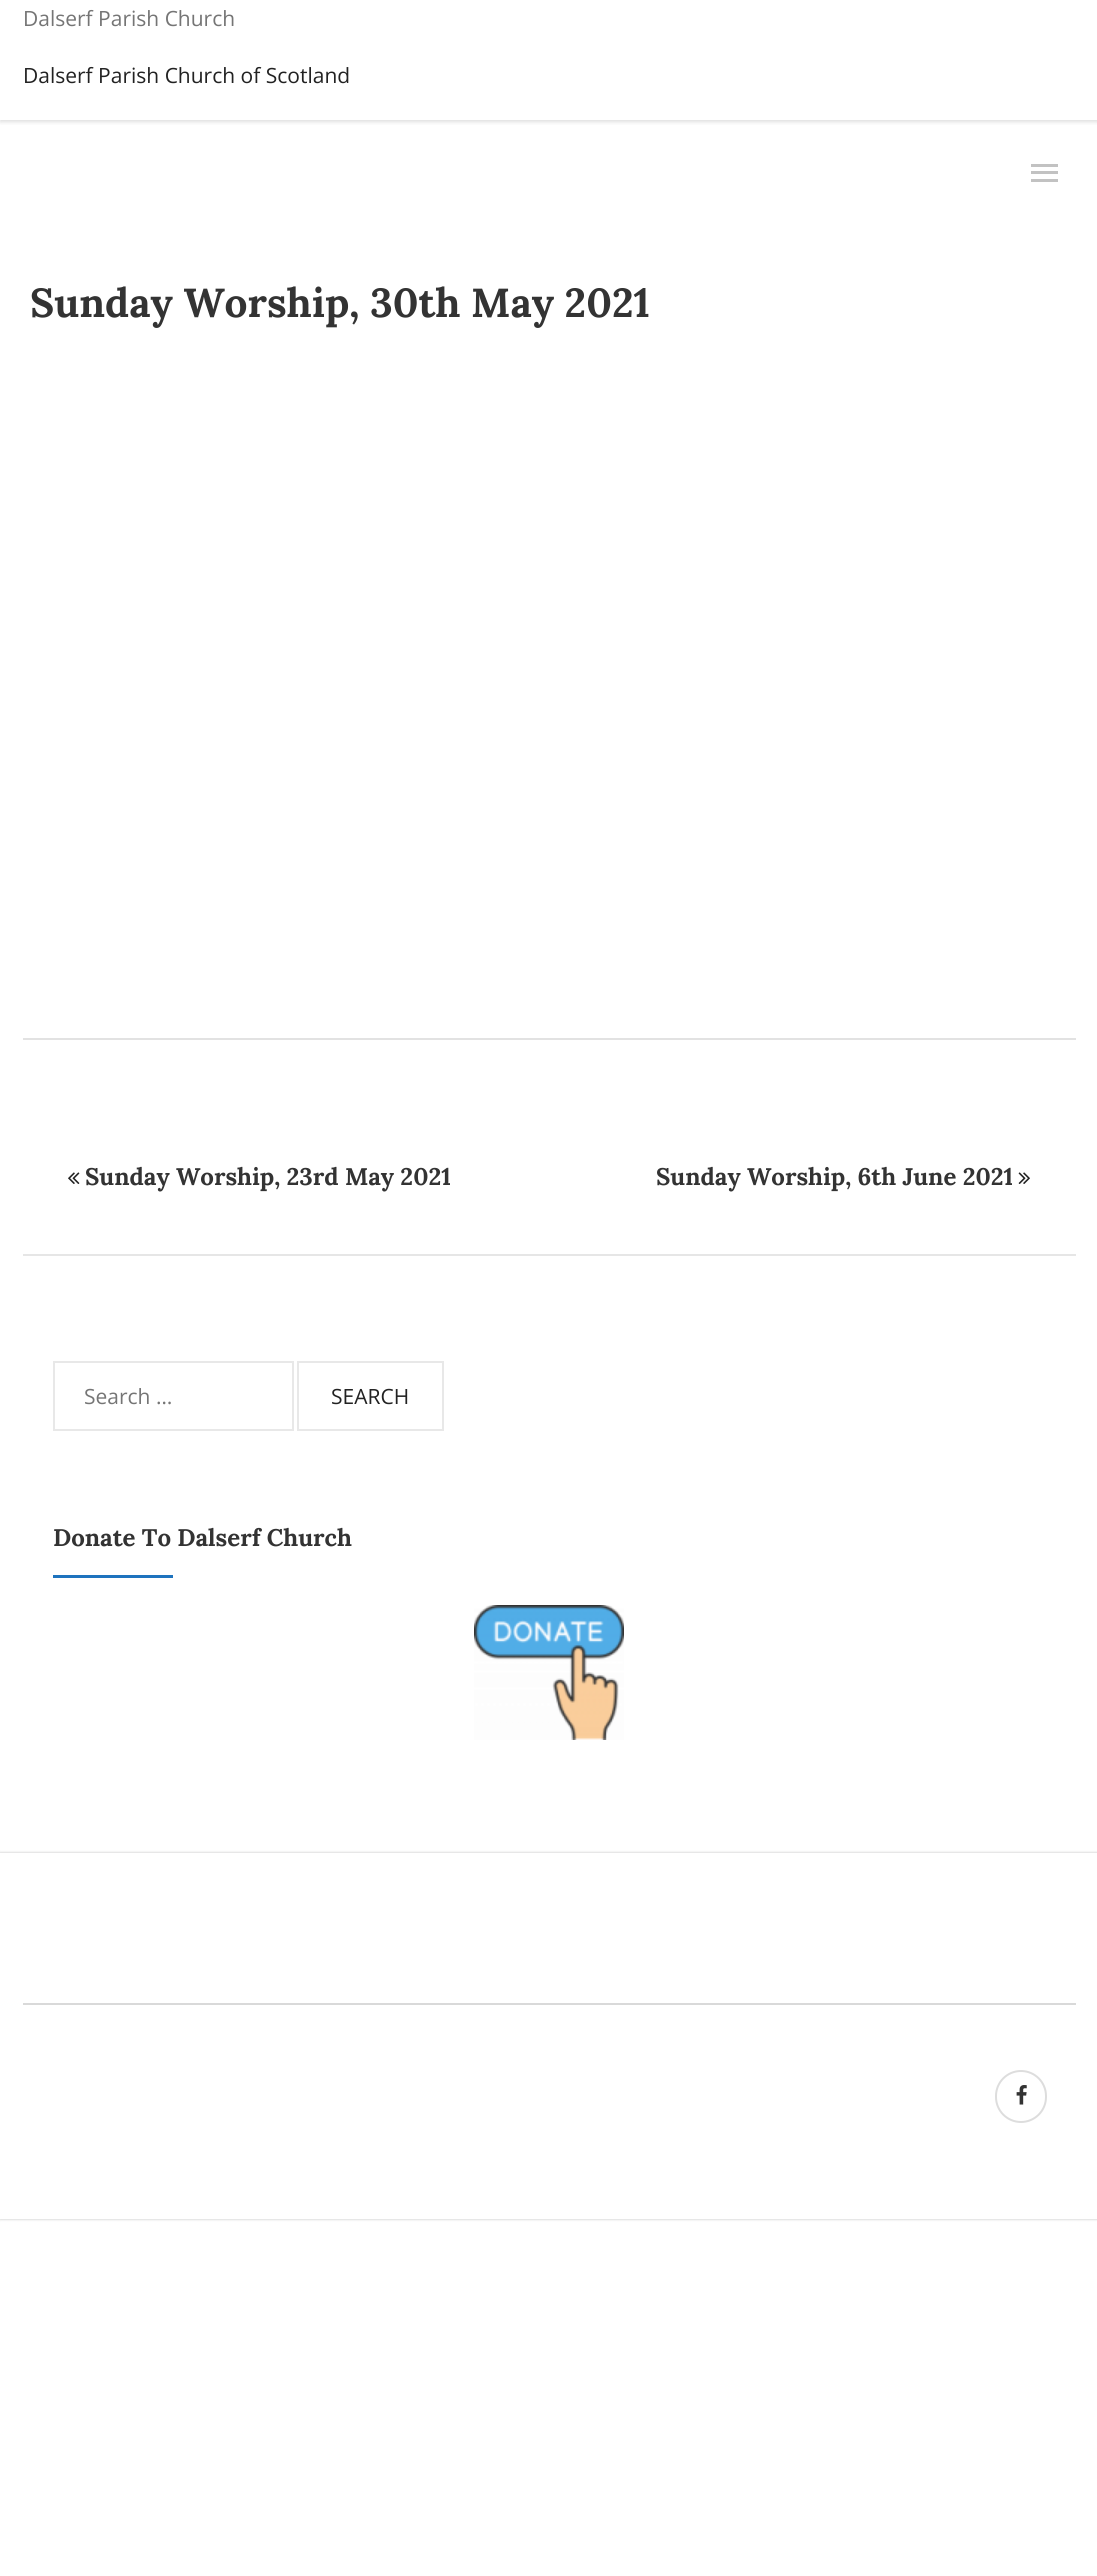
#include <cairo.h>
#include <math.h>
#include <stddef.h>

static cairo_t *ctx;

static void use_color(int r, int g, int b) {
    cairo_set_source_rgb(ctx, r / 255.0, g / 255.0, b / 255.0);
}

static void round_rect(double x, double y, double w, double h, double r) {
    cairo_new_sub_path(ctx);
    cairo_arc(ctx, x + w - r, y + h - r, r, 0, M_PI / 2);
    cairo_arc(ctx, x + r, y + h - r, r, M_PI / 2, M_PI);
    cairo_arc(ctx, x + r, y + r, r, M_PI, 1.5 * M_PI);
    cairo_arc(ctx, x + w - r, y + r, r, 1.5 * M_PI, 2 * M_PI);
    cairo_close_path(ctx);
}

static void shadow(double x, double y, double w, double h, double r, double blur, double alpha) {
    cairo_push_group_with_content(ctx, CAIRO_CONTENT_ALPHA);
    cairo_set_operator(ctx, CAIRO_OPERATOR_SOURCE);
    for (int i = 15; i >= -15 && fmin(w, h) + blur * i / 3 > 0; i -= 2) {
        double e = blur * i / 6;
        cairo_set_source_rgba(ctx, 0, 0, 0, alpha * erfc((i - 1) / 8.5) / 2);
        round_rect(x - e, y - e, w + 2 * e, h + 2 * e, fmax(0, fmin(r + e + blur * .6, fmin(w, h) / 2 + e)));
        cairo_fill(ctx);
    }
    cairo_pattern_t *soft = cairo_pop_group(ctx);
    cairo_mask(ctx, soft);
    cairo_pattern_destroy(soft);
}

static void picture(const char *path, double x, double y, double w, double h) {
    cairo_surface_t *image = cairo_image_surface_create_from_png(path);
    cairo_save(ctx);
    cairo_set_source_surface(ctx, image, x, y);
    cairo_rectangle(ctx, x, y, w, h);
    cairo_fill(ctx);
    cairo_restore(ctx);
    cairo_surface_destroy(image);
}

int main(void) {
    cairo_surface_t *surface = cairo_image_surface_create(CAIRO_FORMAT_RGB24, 1097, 2576);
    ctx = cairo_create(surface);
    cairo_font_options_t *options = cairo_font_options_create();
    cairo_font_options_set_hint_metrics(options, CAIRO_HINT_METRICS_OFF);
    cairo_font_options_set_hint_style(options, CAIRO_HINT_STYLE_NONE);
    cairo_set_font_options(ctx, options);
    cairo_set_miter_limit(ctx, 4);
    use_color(255, 255, 255);
    cairo_paint(ctx);
    cairo_save(ctx);
    cairo_rectangle(ctx, 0, 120, 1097, 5);
    cairo_clip(ctx);
    use_color(190, 190, 190);
    shadow(0, 2, 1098, 120, 0, 2, 0.5);
    cairo_restore(ctx);
    cairo_select_font_face(ctx, "Open Sans", CAIRO_FONT_SLANT_NORMAL, CAIRO_FONT_WEIGHT_NORMAL);
    cairo_set_font_size(ctx, 21);
    use_color(117, 117, 117);
    cairo_move_to(ctx, 23, 26);
    cairo_show_text(ctx, "Dalserf Parish Church");
    use_color(34, 34, 34);
    cairo_move_to(ctx, 23, 83);
    cairo_show_text(ctx, "Dalserf Parish Church of Scotland");
    use_color(194, 194, 194);
    cairo_rectangle(ctx, 1031, 164, 27, 3);
    cairo_fill(ctx);
    cairo_rectangle(ctx, 1031, 171, 27, 3);
    cairo_fill(ctx);
    cairo_rectangle(ctx, 1031, 179, 27, 3);
    cairo_fill(ctx);
    use_color(226, 226, 226);
    cairo_rectangle(ctx, 23, 1038, 1053, 2);
    cairo_fill(ctx);
    cairo_select_font_face(ctx, "Lora", CAIRO_FONT_SLANT_NORMAL, CAIRO_FONT_WEIGHT_BOLD);
    cairo_set_font_size(ctx, 40.5);
    use_color(51, 51, 51);
    cairo_move_to(ctx, 30, 317);
    cairo_show_text(ctx, "Sunday Worship, 30th May 2021");
    use_color(230, 230, 230);
    cairo_rectangle(ctx, 23, 1254, 1053, 2);
    cairo_fill(ctx);
    picture("img1.png", 68, 1172, 12, 12);
    cairo_set_font_size(ctx, 24);
    use_color(51, 51, 51);
    cairo_move_to(ctx, 85, 1185);
    cairo_show_text(ctx, "Sunday Worship, 23rd May 2021");
    cairo_move_to(ctx, 656, 1185);
    cairo_show_text(ctx, "Sunday Worship, 6th June 2021");
    picture("img2.png", 1018, 1172, 12, 12);
    cairo_rectangle(ctx, 54, 1362, 239, 68);
    use_color(232, 232, 232);
    cairo_stroke(ctx);
    cairo_select_font_face(ctx, "Open Sans", CAIRO_FONT_SLANT_NORMAL, CAIRO_FONT_WEIGHT_NORMAL);
    cairo_set_font_size(ctx, 21);
    use_color(117, 117, 117);
    cairo_move_to(ctx, 84, 1404);
    cairo_show_text(ctx, "Search …");
    cairo_rectangle(ctx, 298, 1362, 145, 68);
    use_color(232, 232, 232);
    cairo_stroke(ctx);
    use_color(34, 34, 34);
    cairo_move_to(ctx, 331, 1404);
    cairo_show_text(ctx, "SEARCH");
    cairo_select_font_face(ctx, "Lora", CAIRO_FONT_SLANT_NORMAL, CAIRO_FONT_WEIGHT_BOLD);
    cairo_set_font_size(ctx, 24);
    use_color(51, 51, 51);
    cairo_move_to(ctx, 53, 1546);
    cairo_show_text(ctx, "Donate To Dalserf Church");
    use_color(30, 115, 190);
    cairo_rectangle(ctx, 53, 1575, 120, 3);
    cairo_fill(ctx);
    picture("img3.png", 474, 1605, 150, 135);
    use_color(0, 0, 0);
    shadow(0, 1853, 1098, 366, 0, 1.5, 0.25);
    use_color(255, 255, 255);
    cairo_rectangle(ctx, 0, 1853, 1097, 366);
    cairo_fill(ctx);
    use_color(217, 217, 217);
    cairo_rectangle(ctx, 23, 2003, 1053, 2);
    cairo_fill(ctx);
    round_rect(996, 2071, 50, 51, 25);
    use_color(221, 221, 221);
    cairo_stroke(ctx);
    picture("img4.png", 1016, 2085, 11, 20);
    cairo_surface_write_to_png(surface, "result.png");
    cairo_font_options_destroy(options);
    cairo_destroy(ctx);
    cairo_surface_destroy(surface);
    return 0;
}
